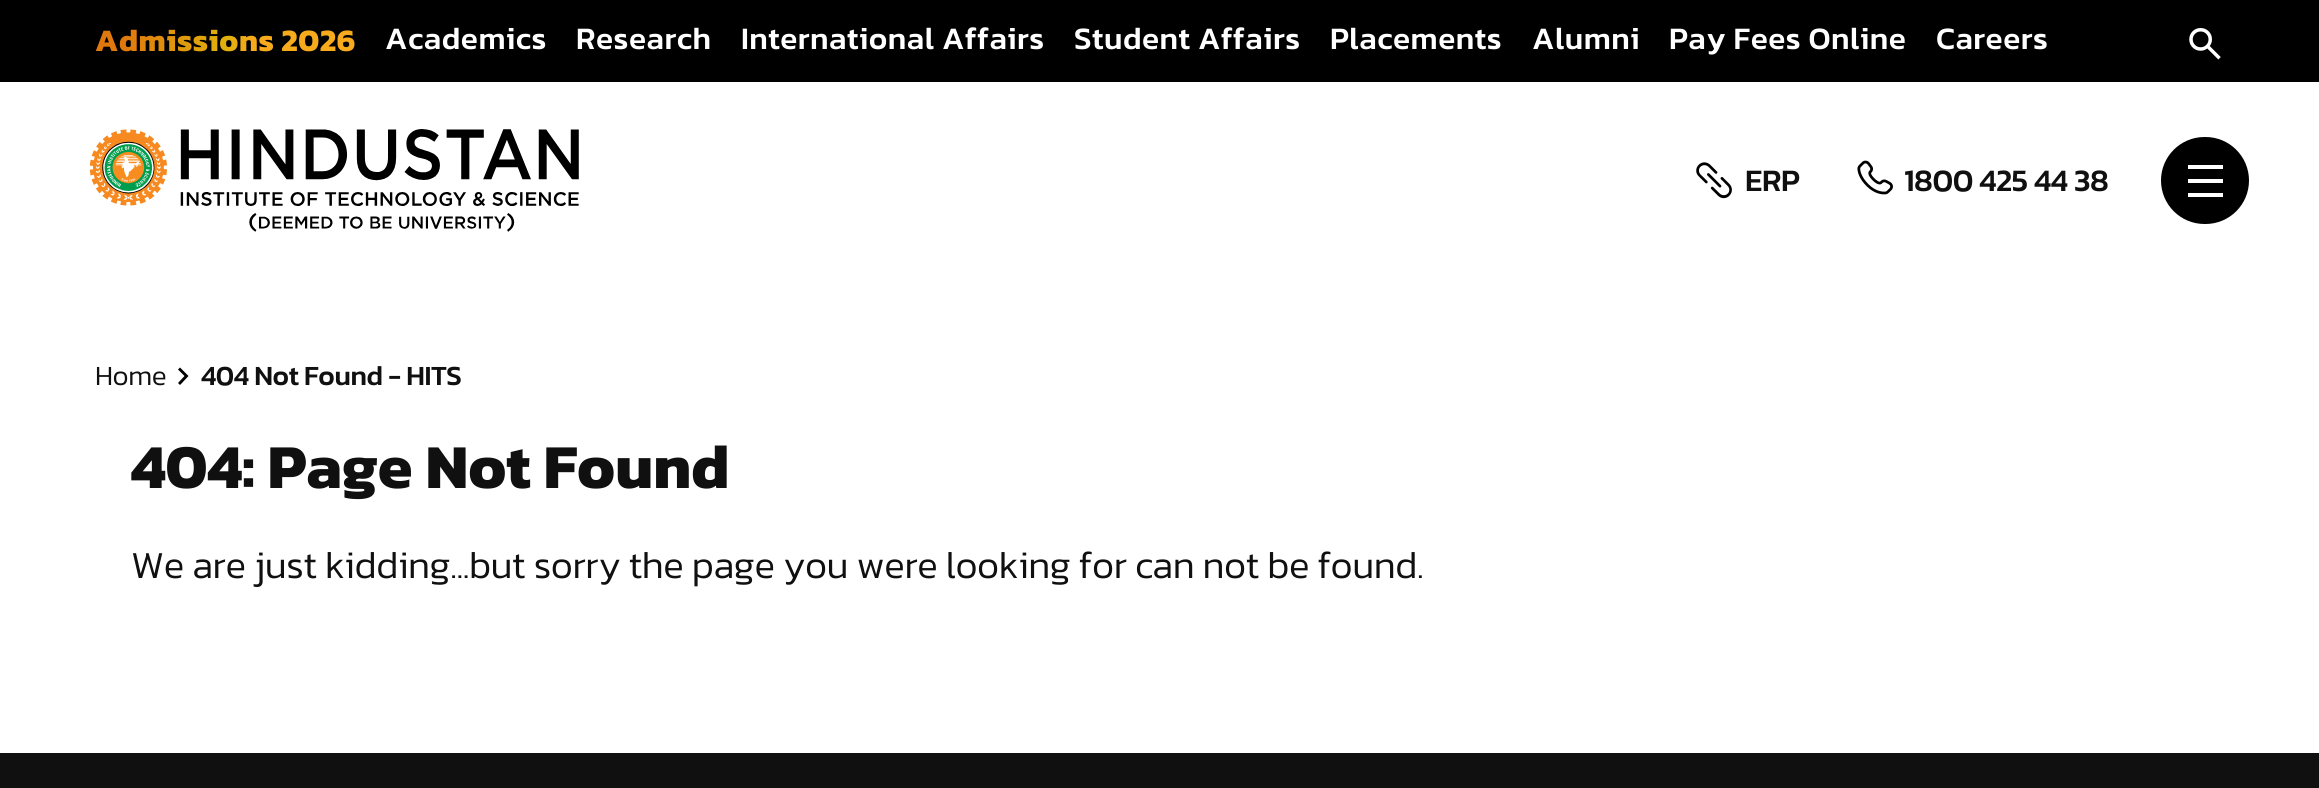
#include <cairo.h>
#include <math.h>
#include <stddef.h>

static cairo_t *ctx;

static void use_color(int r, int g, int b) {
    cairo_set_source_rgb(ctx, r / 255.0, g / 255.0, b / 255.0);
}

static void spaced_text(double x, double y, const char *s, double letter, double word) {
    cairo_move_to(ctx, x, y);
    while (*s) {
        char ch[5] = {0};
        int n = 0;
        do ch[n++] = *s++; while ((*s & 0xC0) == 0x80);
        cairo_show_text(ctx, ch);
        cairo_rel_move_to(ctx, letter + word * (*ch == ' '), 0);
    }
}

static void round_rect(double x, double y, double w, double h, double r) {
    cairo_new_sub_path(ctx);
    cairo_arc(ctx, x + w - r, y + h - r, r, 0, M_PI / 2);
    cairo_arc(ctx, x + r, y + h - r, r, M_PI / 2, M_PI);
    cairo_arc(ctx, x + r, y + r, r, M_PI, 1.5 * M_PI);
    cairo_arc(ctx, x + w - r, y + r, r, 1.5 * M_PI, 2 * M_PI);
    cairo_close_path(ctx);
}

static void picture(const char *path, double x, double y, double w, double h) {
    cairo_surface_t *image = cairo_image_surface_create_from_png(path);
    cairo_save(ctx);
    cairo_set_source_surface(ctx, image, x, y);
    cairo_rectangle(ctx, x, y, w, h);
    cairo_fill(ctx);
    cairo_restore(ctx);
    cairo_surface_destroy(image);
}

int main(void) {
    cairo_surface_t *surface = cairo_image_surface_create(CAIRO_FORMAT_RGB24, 2319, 788);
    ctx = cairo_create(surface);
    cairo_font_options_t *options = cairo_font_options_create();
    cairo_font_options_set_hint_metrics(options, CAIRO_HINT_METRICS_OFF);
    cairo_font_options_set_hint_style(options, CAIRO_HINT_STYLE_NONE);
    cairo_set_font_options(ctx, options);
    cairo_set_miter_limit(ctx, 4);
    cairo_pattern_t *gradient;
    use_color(255, 255, 255);
    cairo_paint(ctx);
    use_color(0, 0, 0);
    cairo_rectangle(ctx, 0, 0, 2319, 82);
    cairo_fill(ctx);
    cairo_select_font_face(ctx, "Kanit", CAIRO_FONT_SLANT_NORMAL, CAIRO_FONT_WEIGHT_BOLD);
    cairo_set_font_size(ctx, 31.5);
    gradient = cairo_pattern_create_linear(95, 40, 356, 40);
    cairo_pattern_add_color_stop_rgba(gradient, 0.1, 0.878, 0.471, 0.051, 1);
    cairo_pattern_add_color_stop_rgba(gradient, 0.5, 0.878, 0.69, 0.051, 1);
    cairo_pattern_add_color_stop_rgba(gradient, 0.6, 0.965, 0.667, 0.11, 1);
    cairo_set_source(ctx, gradient);
    cairo_pattern_destroy(gradient);
    spaced_text(95, 51, "Admissions 2026", 0.5, 0);
    cairo_select_font_face(ctx, "Kanit Medium", CAIRO_FONT_SLANT_NORMAL, CAIRO_FONT_WEIGHT_NORMAL);
    use_color(255, 255, 255);
    spaced_text(385, 49, "Academics", 0.5, 0);
    spaced_text(576, 49, "Research", 0.5, 0);
    spaced_text(741, 49, "International Affairs", 0.5, 0);
    spaced_text(1074, 49, "Student Affairs", 0.5, 0);
    spaced_text(1330, 49, "Placements", 0.5, 0);
    spaced_text(1532, 49, "Alumni", 0.5, 0);
    spaced_text(1669, 49, "Pay Fees Online", 0.5, 0);
    spaced_text(1936, 49, "Careers", 0.5, 0);
    picture("img1.png", 2189, 28, 32, 32);
    picture("img2.png", 89, 129, 490, 103);
    picture("img3.png", 1696, 162, 36, 37);
    use_color(16, 16, 16);
    spaced_text(1745, 191, "ERP", -0.45, 0);
    picture("img4.png", 1857, 160, 36, 35);
    spaced_text(1904, 191, "1800 425 44 38", -0.45, 0);
    use_color(0, 0, 0);
    round_rect(2161, 137, 88, 87, 43.5);
    cairo_fill(ctx);
    use_color(255, 255, 255);
    cairo_rectangle(ctx, 2188, 165, 35, 4);
    cairo_fill(ctx);
    cairo_rectangle(ctx, 2188, 179, 35, 4);
    cairo_fill(ctx);
    cairo_rectangle(ctx, 2188, 193, 35, 4);
    cairo_fill(ctx);
    cairo_select_font_face(ctx, "Kanit Light", CAIRO_FONT_SLANT_NORMAL, CAIRO_FONT_WEIGHT_NORMAL);
    cairo_set_font_size(ctx, 28);
    use_color(16, 16, 16);
    spaced_text(95, 385, "Home", -0.45, 0);
    use_color(0, 0, 0);
    cairo_new_path(ctx);
    cairo_move_to(ctx, 184.5, 376);
    cairo_line_to(ctx, 178, 369.5);
    cairo_line_to(ctx, 180, 367.5);
    cairo_line_to(ctx, 188.5, 376);
    cairo_line_to(ctx, 180, 385);
    cairo_line_to(ctx, 178, 383);
    cairo_close_path(ctx);
    cairo_fill(ctx);
    cairo_select_font_face(ctx, "Kanit Medium", CAIRO_FONT_SLANT_NORMAL, CAIRO_FONT_WEIGHT_NORMAL);
    use_color(16, 16, 16);
    spaced_text(201, 385, "404 Not Found - HITS", -0.45, 0);
    cairo_select_font_face(ctx, "Kanit", CAIRO_FONT_SLANT_NORMAL, CAIRO_FONT_WEIGHT_BOLD);
    cairo_set_font_size(ctx, 63);
    cairo_move_to(ctx, 131, 488);
    cairo_show_text(ctx, "404: Page Not Found");
    cairo_select_font_face(ctx, "Kanit Light", CAIRO_FONT_SLANT_NORMAL, CAIRO_FONT_WEIGHT_NORMAL);
    cairo_set_font_size(ctx, 38.5);
    spaced_text(131, 578, "We are just kidding...but sorry the page you were looking for can not be found.", -0.45, 0);
    cairo_rectangle(ctx, 0, 753, 2319, 35);
    cairo_fill(ctx);
    cairo_surface_write_to_png(surface, "result.png");
    cairo_font_options_destroy(options);
    cairo_destroy(ctx);
    cairo_surface_destroy(surface);
    return 0;
}
